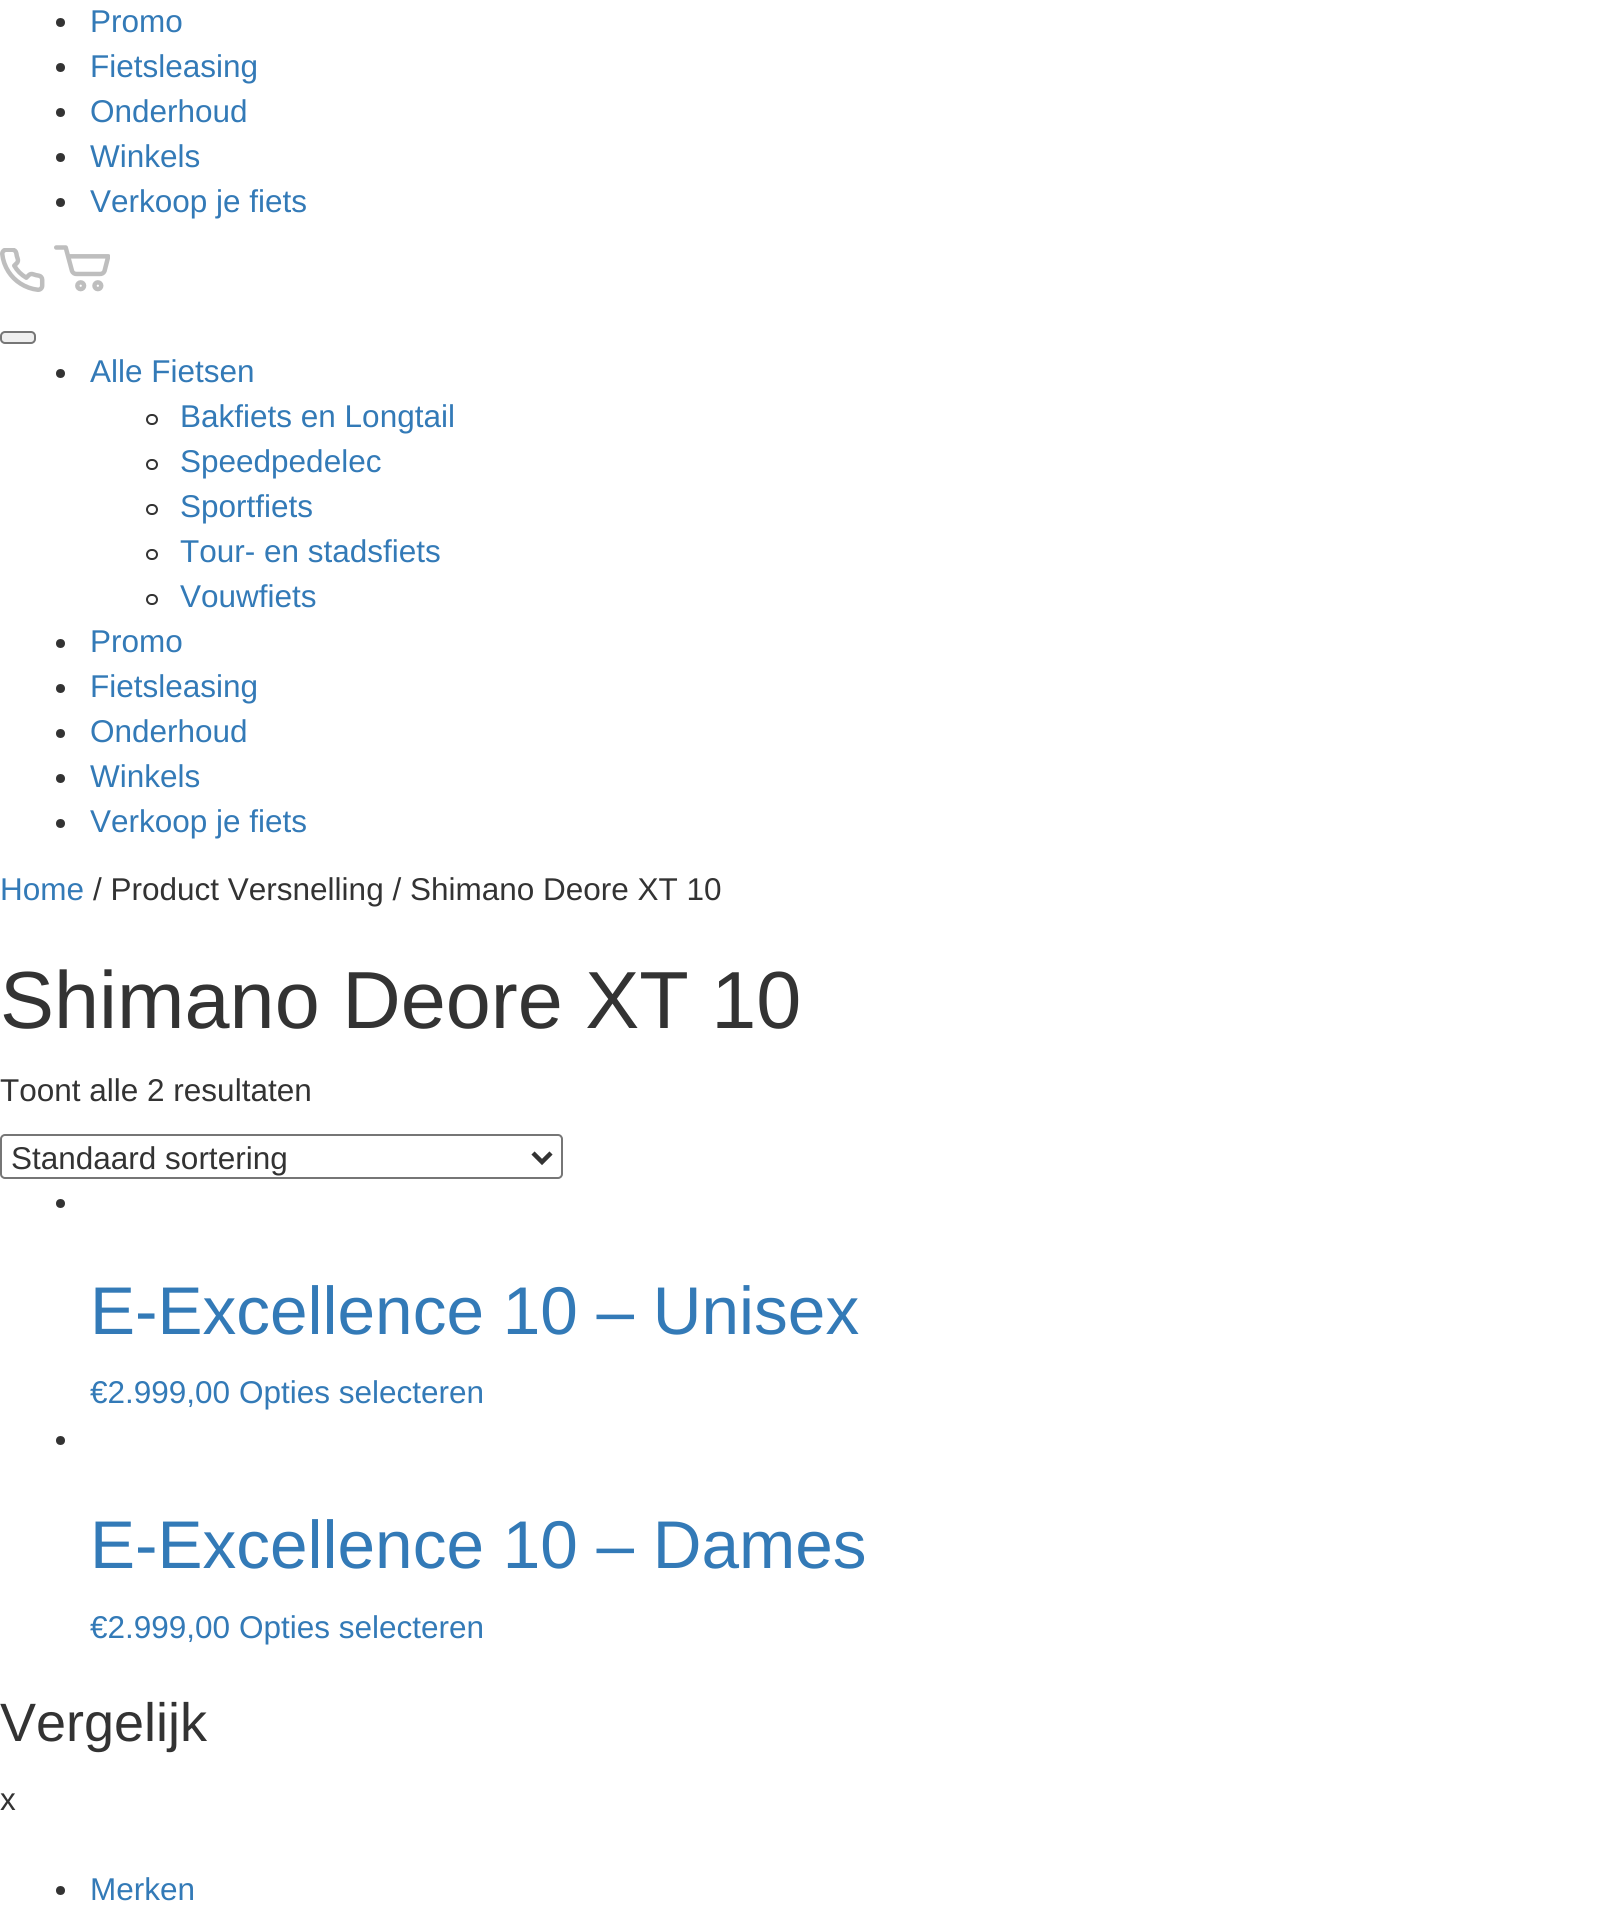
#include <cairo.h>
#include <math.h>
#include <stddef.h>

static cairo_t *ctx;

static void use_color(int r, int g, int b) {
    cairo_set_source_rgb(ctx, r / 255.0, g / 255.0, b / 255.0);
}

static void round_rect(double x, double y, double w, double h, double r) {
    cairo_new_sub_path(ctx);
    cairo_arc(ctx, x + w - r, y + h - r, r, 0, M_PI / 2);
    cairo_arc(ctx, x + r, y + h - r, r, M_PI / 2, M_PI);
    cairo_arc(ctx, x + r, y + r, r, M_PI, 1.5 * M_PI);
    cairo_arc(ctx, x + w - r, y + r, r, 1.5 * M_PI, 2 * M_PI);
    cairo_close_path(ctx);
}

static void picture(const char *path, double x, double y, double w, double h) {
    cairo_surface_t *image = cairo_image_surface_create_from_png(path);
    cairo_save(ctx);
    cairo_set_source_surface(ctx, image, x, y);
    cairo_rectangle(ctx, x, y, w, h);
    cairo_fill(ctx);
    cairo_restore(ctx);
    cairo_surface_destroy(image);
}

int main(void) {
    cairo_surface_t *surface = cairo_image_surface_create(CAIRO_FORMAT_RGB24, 1615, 1909);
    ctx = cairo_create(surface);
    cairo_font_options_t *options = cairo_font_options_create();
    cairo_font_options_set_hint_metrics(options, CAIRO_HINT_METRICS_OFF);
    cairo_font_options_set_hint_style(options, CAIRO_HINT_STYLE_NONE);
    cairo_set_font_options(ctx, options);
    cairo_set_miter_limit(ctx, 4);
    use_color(255, 255, 255);
    cairo_paint(ctx);
    use_color(51, 51, 51);
    cairo_arc(ctx, 60.5, 22.5, 4.5, 0, 2 * M_PI);
    cairo_fill(ctx);
    cairo_select_font_face(ctx, "Liberation Sans", CAIRO_FONT_SLANT_NORMAL, CAIRO_FONT_WEIGHT_NORMAL);
    cairo_set_font_size(ctx, 31.5);
    use_color(51, 122, 183);
    cairo_move_to(ctx, 90, 32);
    cairo_show_text(ctx, "Promo");
    use_color(51, 51, 51);
    cairo_new_path(ctx);
    cairo_arc(ctx, 60.5, 67.5, 4.5, 0, 2 * M_PI);
    cairo_fill(ctx);
    use_color(51, 122, 183);
    cairo_move_to(ctx, 90, 77);
    cairo_show_text(ctx, "Fietsleasing");
    use_color(51, 51, 51);
    cairo_new_path(ctx);
    cairo_arc(ctx, 60.5, 112.5, 4.5, 0, 2 * M_PI);
    cairo_fill(ctx);
    use_color(51, 122, 183);
    cairo_move_to(ctx, 90, 122);
    cairo_show_text(ctx, "Onderhoud");
    use_color(51, 51, 51);
    cairo_new_path(ctx);
    cairo_arc(ctx, 60.5, 157.5, 4.5, 0, 2 * M_PI);
    cairo_fill(ctx);
    use_color(51, 122, 183);
    cairo_move_to(ctx, 90, 167);
    cairo_show_text(ctx, "Winkels");
    use_color(51, 51, 51);
    cairo_new_path(ctx);
    cairo_arc(ctx, 60.5, 202.5, 4.5, 0, 2 * M_PI);
    cairo_fill(ctx);
    use_color(51, 122, 183);
    cairo_move_to(ctx, 90, 212);
    cairo_show_text(ctx, "Verkoop je fiets");
    picture("img1.png", 0, 248, 45, 44);
    picture("img2.png", 54, 245, 56, 47);
    use_color(239, 239, 239);
    round_rect(1, 332, 34, 11, 4);
    cairo_fill_preserve(ctx);
    use_color(118, 118, 118);
    cairo_stroke(ctx);
    use_color(51, 51, 51);
    cairo_arc(ctx, 60.5, 373.5, 4.5, 0, 2 * M_PI);
    cairo_fill(ctx);
    use_color(51, 122, 183);
    cairo_move_to(ctx, 90, 382);
    cairo_show_text(ctx, "Alle Fietsen");
    round_rect(147, 415, 10, 9, 4.5);
    use_color(51, 51, 51);
    cairo_stroke(ctx);
    use_color(51, 122, 183);
    cairo_move_to(ctx, 180, 427);
    cairo_show_text(ctx, "Bakfiets en Longtail");
    round_rect(147, 460, 10, 9, 4.5);
    use_color(51, 51, 51);
    cairo_stroke(ctx);
    use_color(51, 122, 183);
    cairo_move_to(ctx, 180, 472);
    cairo_show_text(ctx, "Speedpedelec");
    round_rect(147, 505, 10, 9, 4.5);
    use_color(51, 51, 51);
    cairo_stroke(ctx);
    use_color(51, 122, 183);
    cairo_move_to(ctx, 180, 517);
    cairo_show_text(ctx, "Sportfiets");
    round_rect(147, 550, 10, 9, 4.5);
    use_color(51, 51, 51);
    cairo_stroke(ctx);
    use_color(51, 122, 183);
    cairo_move_to(ctx, 180, 562);
    cairo_show_text(ctx, "Tour- en stadsfiets");
    round_rect(147, 595, 10, 9, 4.5);
    use_color(51, 51, 51);
    cairo_stroke(ctx);
    use_color(51, 122, 183);
    cairo_move_to(ctx, 180, 607);
    cairo_show_text(ctx, "Vouwfiets");
    use_color(51, 51, 51);
    cairo_new_path(ctx);
    cairo_arc(ctx, 60.5, 643.5, 4.5, 0, 2 * M_PI);
    cairo_fill(ctx);
    use_color(51, 122, 183);
    cairo_move_to(ctx, 90, 652);
    cairo_show_text(ctx, "Promo");
    use_color(51, 51, 51);
    cairo_new_path(ctx);
    cairo_arc(ctx, 60.5, 688.5, 4.5, 0, 2 * M_PI);
    cairo_fill(ctx);
    use_color(51, 122, 183);
    cairo_move_to(ctx, 90, 697);
    cairo_show_text(ctx, "Fietsleasing");
    use_color(51, 51, 51);
    cairo_new_path(ctx);
    cairo_arc(ctx, 60.5, 733.5, 4.5, 0, 2 * M_PI);
    cairo_fill(ctx);
    use_color(51, 122, 183);
    cairo_move_to(ctx, 90, 742);
    cairo_show_text(ctx, "Onderhoud");
    use_color(51, 51, 51);
    cairo_new_path(ctx);
    cairo_arc(ctx, 60.5, 778.5, 4.5, 0, 2 * M_PI);
    cairo_fill(ctx);
    use_color(51, 122, 183);
    cairo_move_to(ctx, 90, 787);
    cairo_show_text(ctx, "Winkels");
    use_color(51, 51, 51);
    cairo_new_path(ctx);
    cairo_arc(ctx, 60.5, 823.5, 4.5, 0, 2 * M_PI);
    cairo_fill(ctx);
    use_color(51, 122, 183);
    cairo_move_to(ctx, 90, 832);
    cairo_show_text(ctx, "Verkoop je fiets");
    cairo_move_to(ctx, 0, 900);
    cairo_show_text(ctx, "Home");
    use_color(51, 51, 51);
    cairo_move_to(ctx, 93, 900);
    cairo_show_text(ctx, "/ Product Versnelling / Shimano Deore XT 10");
    cairo_set_font_size(ctx, 81);
    cairo_move_to(ctx, 0, 1028);
    cairo_show_text(ctx, "Shimano Deore XT 10");
    cairo_set_font_size(ctx, 31.5);
    cairo_move_to(ctx, 0, 1101);
    cairo_show_text(ctx, "Toont alle 2 resultaten");
    round_rect(1, 1135, 561, 43, 4);
    use_color(118, 118, 118);
    cairo_stroke(ctx);
    cairo_new_path(ctx);
    cairo_move_to(ctx, 533, 1153);
    cairo_line_to(ctx, 542, 1162);
    cairo_line_to(ctx, 551, 1153);
    use_color(51, 51, 51);
    cairo_set_line_width(ctx, 4.5);
    cairo_stroke(ctx);
    cairo_move_to(ctx, 11, 1169);
    cairo_show_text(ctx, "Standaard sortering");
    cairo_new_path(ctx);
    cairo_arc(ctx, 60.5, 1203.5, 4.5, 0, 2 * M_PI);
    cairo_fill(ctx);
    cairo_set_font_size(ctx, 67.5);
    use_color(51, 122, 183);
    cairo_move_to(ctx, 90, 1334);
    cairo_show_text(ctx, "E-Excellence 10 – Unisex");
    cairo_set_font_size(ctx, 31.5);
    cairo_move_to(ctx, 90, 1403);
    cairo_show_text(ctx, "€2.999,00 Opties selecteren");
    use_color(51, 51, 51);
    cairo_new_path(ctx);
    cairo_arc(ctx, 60.5, 1440.5, 4.5, 0, 2 * M_PI);
    cairo_fill(ctx);
    cairo_set_font_size(ctx, 67.5);
    use_color(51, 122, 183);
    cairo_move_to(ctx, 90, 1568);
    cairo_show_text(ctx, "E-Excellence 10 – Dames");
    cairo_set_font_size(ctx, 31.5);
    cairo_move_to(ctx, 90, 1638);
    cairo_show_text(ctx, "€2.999,00 Opties selecteren");
    cairo_set_font_size(ctx, 54);
    use_color(51, 51, 51);
    cairo_move_to(ctx, 0, 1741);
    cairo_show_text(ctx, "Vergelijk");
    cairo_set_font_size(ctx, 31.5);
    cairo_move_to(ctx, 0, 1810);
    cairo_show_text(ctx, "x");
    cairo_new_path(ctx);
    cairo_arc(ctx, 60.5, 1890.5, 4.5, 0, 2 * M_PI);
    cairo_fill(ctx);
    use_color(51, 122, 183);
    cairo_move_to(ctx, 90, 1900);
    cairo_show_text(ctx, "Merken");
    cairo_surface_write_to_png(surface, "result.png");
    cairo_font_options_destroy(options);
    cairo_destroy(ctx);
    cairo_surface_destroy(surface);
    return 0;
}
